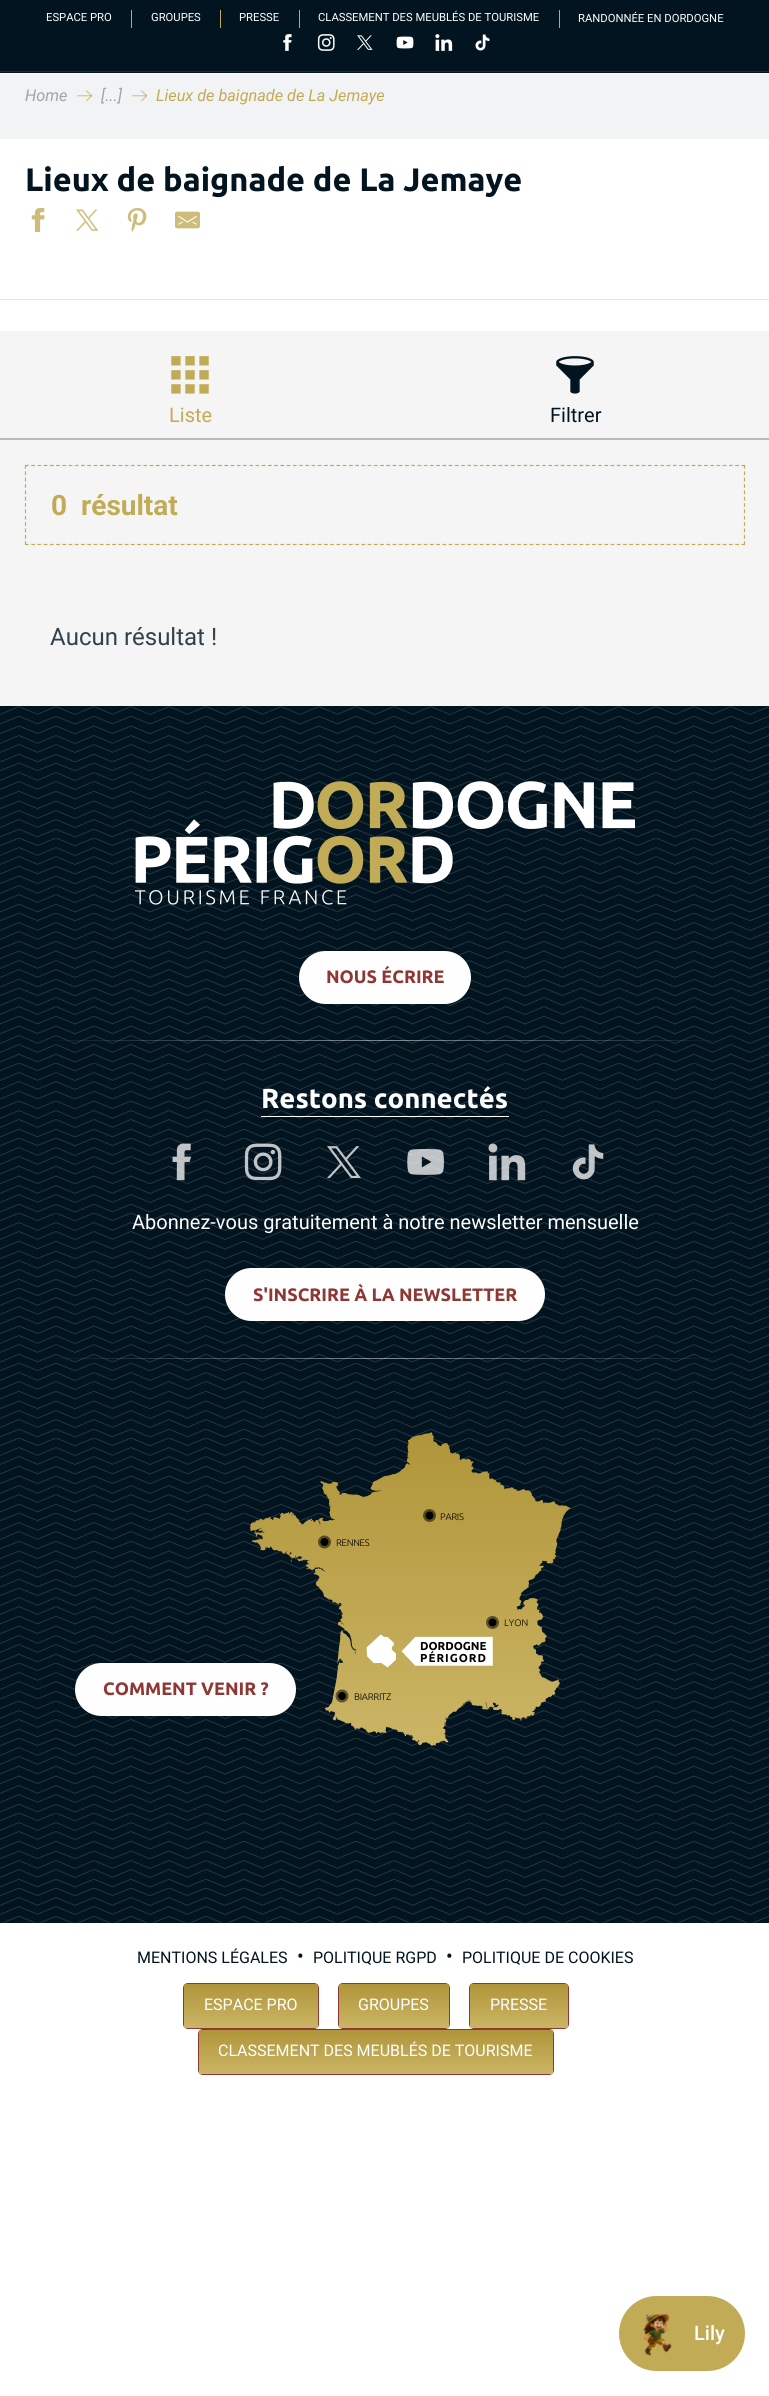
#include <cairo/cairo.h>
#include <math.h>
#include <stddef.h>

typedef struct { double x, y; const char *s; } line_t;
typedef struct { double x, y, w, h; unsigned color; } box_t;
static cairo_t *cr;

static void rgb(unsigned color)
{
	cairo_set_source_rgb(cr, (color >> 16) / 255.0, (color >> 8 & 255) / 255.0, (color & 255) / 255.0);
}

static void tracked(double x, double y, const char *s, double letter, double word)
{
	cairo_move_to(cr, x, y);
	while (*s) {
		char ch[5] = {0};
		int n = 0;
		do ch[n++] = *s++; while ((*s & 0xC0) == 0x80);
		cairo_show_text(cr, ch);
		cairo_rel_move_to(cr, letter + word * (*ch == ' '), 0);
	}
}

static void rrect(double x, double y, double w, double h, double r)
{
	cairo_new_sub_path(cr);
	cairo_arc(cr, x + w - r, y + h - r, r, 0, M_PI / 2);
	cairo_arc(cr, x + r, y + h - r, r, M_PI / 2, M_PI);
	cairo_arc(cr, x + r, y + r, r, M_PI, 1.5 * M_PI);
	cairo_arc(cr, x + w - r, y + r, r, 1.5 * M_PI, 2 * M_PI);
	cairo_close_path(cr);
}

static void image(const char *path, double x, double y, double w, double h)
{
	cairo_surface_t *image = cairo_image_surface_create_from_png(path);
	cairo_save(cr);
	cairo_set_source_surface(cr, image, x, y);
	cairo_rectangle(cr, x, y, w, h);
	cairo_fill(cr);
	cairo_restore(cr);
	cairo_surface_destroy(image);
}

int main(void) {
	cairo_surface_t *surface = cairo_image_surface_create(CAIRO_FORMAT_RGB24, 769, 2396);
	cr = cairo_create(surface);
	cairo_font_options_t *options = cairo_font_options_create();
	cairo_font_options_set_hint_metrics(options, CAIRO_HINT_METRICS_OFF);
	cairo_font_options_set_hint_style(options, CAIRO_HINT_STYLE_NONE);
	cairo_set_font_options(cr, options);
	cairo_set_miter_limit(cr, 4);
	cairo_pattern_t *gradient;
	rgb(0xffffff);
	cairo_paint(cr);
	{
		static const box_t items[] = {
			{0, 0, 769, 73, 0x02141f},
			{0, 71, 769, 1, 0x1b2b35},
			{131, 10, 1, 18, 0xc2ab57},
			{220, 10, 1, 18, 0xc2ab57},
			{299, 10, 1, 18, 0xc2ab57},
			{559, 10, 1, 18, 0xc2ab57},
		};
		for (size_t i = 0; i < sizeof items / sizeof *items; i++) {
			rgb(items[i].color);
			cairo_rectangle(cr, items[i].x, items[i].y, items[i].w, items[i].h);
			cairo_fill(cr);
		}
	}
	image("img/1.png", 283, 34, 9, 17);
	image("img/2.png", 317, 34, 18, 17);
	image("img/3.png", 357, 35, 16, 15);
	image("img/4.png", 396, 36, 18, 13);
	image("img/5.png", 435, 34, 18, 17);
	image("img/6.png", 475, 34, 15, 17);
	rgb(0xe5e5e5);
	cairo_rectangle(cr, 0, 299, 769, 1);
	cairo_fill(cr);
	rgb(0xf2f3f4);
	cairo_rectangle(cr, 0, 74, 769, 65);
	cairo_fill(cr);
	image("img/7.png", 77, 90, 16, 11);
	image("img/7.png", 132, 90, 16, 11);
	image("img/8.png", 31, 208, 14, 24);
	image("img/9.png", 76, 209, 23, 22);
	image("img/10.png", 127, 208, 20, 24);
	image("img/11.png", 175, 211, 25, 18);
	rgb(0xf5f5f5);
	cairo_rectangle(cr, 0, 331, 769, 107);
	cairo_fill(cr);
	rgb(0xbababa);
	cairo_rectangle(cr, 0, 438, 769, 2);
	cairo_fill(cr);
	image("img/12.png", 171, 356, 38, 38);
	image("img/13.png", 556, 356, 38, 38);
	rgb(0xf5f5f5);
	cairo_rectangle(cr, 0, 440, 769, 266);
	cairo_fill(cr);
	cairo_new_path(cr);
	cairo_move_to(cr, 25, 465.5);
	cairo_line_to(cr, 745, 465.5);
	rgb(0xc2ab57);
	cairo_set_line_width(cr, 1.2);
	cairo_set_dash(cr, (double[]){3.75, 2.48}, 2, 0);
	cairo_stroke(cr);
	cairo_new_path(cr);
	cairo_move_to(cr, 744.5, 465);
	cairo_line_to(cr, 744.5, 545);
	cairo_set_dash(cr, (double[]){3.75, 2.6}, 2, 0);
	cairo_stroke(cr);
	cairo_new_path(cr);
	cairo_move_to(cr, 25, 544.5);
	cairo_line_to(cr, 745, 544.5);
	cairo_set_dash(cr, (double[]){3.75, 2.48}, 2, 0);
	cairo_stroke(cr);
	cairo_new_path(cr);
	cairo_move_to(cr, 25.5, 465);
	cairo_line_to(cr, 25.5, 545);
	cairo_set_dash(cr, (double[]){3.75, 2.6}, 2, 0);
	cairo_stroke(cr);
	rgb(0x02141f);
	cairo_rectangle(cr, 0, 706, 769, 1217);
	cairo_fill(cr);
	image("img/14.png", 0, 706, 769, 1217);
	image("img/15.png", 135, 781, 500, 124);
	rgb(0xfefefe);
	rrect(300.5, 952.5, 169, 50, 25);
	cairo_fill_preserve(cr);
	cairo_set_line_width(cr, 3);
	cairo_set_dash(cr, NULL, 0, 0);
	cairo_stroke(cr);
	gradient = cairo_pattern_create_linear(38, 1041, 733, 1041);
	cairo_pattern_add_color_stop_rgba(gradient, 0, 0.996, 0.996, 0.996, 0);
	cairo_pattern_add_color_stop_rgba(gradient, 0.5, 0.996, 0.996, 0.996, 0.5);
	cairo_pattern_add_color_stop_rgba(gradient, 1, 0.996, 0.996, 0.996, 0);
	cairo_set_source(cr, gradient);
	cairo_pattern_destroy(gradient);
	cairo_rectangle(cr, 53, 1040, 665, 1);
	cairo_fill(cr);
	rgb(0xfefefe);
	cairo_rectangle(cr, 261, 1116, 248, 1);
	cairo_fill(cr);
	image("img/16.png", 172, 1143, 20, 38);
	image("img/17.png", 244, 1143, 38, 38);
	image("img/18.png", 327, 1146, 34, 33);
	image("img/19.png", 407, 1149, 37, 26);
	image("img/20.png", 488, 1143, 38, 38);
	image("img/21.png", 572, 1144, 32, 36);
	rrect(226.5, 1269.5, 317, 50, 25);
	cairo_fill_preserve(cr);
	cairo_stroke(cr);
	gradient = cairo_pattern_create_linear(38, 1358, 733, 1358);
	cairo_pattern_add_color_stop_rgba(gradient, 0, 0.996, 0.996, 0.996, 0);
	cairo_pattern_add_color_stop_rgba(gradient, 0.5, 0.996, 0.996, 0.996, 0.5);
	cairo_pattern_add_color_stop_rgba(gradient, 1, 0.996, 0.996, 0.996, 0);
	cairo_set_source(cr, gradient);
	cairo_pattern_destroy(gradient);
	cairo_rectangle(cr, 53, 1358, 665, 1);
	cairo_fill(cr);
	image("img/22.png", 250, 1432, 321, 314);
	rgb(0xfefefe);
	rrect(76.5, 1664.5, 218, 50, 25);
	cairo_fill_preserve(cr);
	cairo_stroke(cr);
	rgb(0x8f3734);
	rrect(183, 1983, 136, 46, 5);
	cairo_fill(cr);
	gradient = cairo_pattern_create_linear(251, 1984, 251, 2028);
	cairo_pattern_add_color_stop_rgba(gradient, 0, 0.69, 0.584, 0.224, 1);
	cairo_pattern_add_color_stop_rgba(gradient, 1, 0.796, 0.71, 0.396, 1);
	cairo_set_source(cr, gradient);
	cairo_pattern_destroy(gradient);
	cairo_rectangle(cr, 184, 1984, 134, 44);
	cairo_fill(cr);
	rgb(0x8f3734);
	rrect(338, 1983, 112, 46, 5);
	cairo_fill(cr);
	gradient = cairo_pattern_create_linear(394, 1984, 394, 2028);
	cairo_pattern_add_color_stop_rgba(gradient, 0, 0.69, 0.584, 0.224, 1);
	cairo_pattern_add_color_stop_rgba(gradient, 1, 0.796, 0.71, 0.396, 1);
	cairo_set_source(cr, gradient);
	cairo_pattern_destroy(gradient);
	cairo_rectangle(cr, 339, 1984, 110, 44);
	cairo_fill(cr);
	rgb(0x8f3734);
	rrect(469, 1983, 100, 46, 5);
	cairo_fill(cr);
	gradient = cairo_pattern_create_linear(519, 1984, 519, 2028);
	cairo_pattern_add_color_stop_rgba(gradient, 0, 0.69, 0.584, 0.224, 1);
	cairo_pattern_add_color_stop_rgba(gradient, 1, 0.796, 0.71, 0.396, 1);
	cairo_set_source(cr, gradient);
	cairo_pattern_destroy(gradient);
	cairo_rectangle(cr, 470, 1984, 98, 44);
	cairo_fill(cr);
	rgb(0x8f3734);
	rrect(198, 2029, 356, 46, 5);
	cairo_fill(cr);
	gradient = cairo_pattern_create_linear(376, 2030, 376, 2074);
	cairo_pattern_add_color_stop_rgba(gradient, 0, 0.69, 0.584, 0.224, 1);
	cairo_pattern_add_color_stop_rgba(gradient, 1, 0.796, 0.71, 0.396, 1);
	cairo_set_source(cr, gradient);
	cairo_pattern_destroy(gradient);
	cairo_rectangle(cr, 199, 2030, 354, 44);
	cairo_fill(cr);
	rgb(0xc2ab57);
	rrect(619, 2296, 126, 75, 37.5);
	cairo_fill(cr);
	image("img/23.png", 643, 2312, 29, 44);
	cairo_select_font_face(cr, "Roboto", CAIRO_FONT_SLANT_NORMAL, CAIRO_FONT_WEIGHT_NORMAL);
	cairo_set_font_size(cr, 11.25);
	rgb(0xfefefe);
	{
		static const line_t items[] = {
			{46, 21, "ESPACE PRO"},
			{151, 21, "GROUPES"},
			{239, 21, "PRESSE"},
			{318, 21, "CLASSEMENT DES MEUBLÉS DE TOURISME"},
			{578, 22, "RANDONNÉE EN DORDOGNE"},
		};
		for (size_t i = 0; i < sizeof items / sizeof *items; i++) {
			cairo_move_to(cr, items[i].x, items[i].y);
			cairo_show_text(cr, items[i].s);
		}
	}
	cairo_select_font_face(cr, "Roboto", CAIRO_FONT_SLANT_ITALIC, CAIRO_FONT_WEIGHT_NORMAL);
	cairo_set_font_size(cr, 16.25);
	rgb(0xa3a3a3);
	cairo_move_to(cr, 25, 101);
	cairo_show_text(cr, "Home");
	cairo_move_to(cr, 101, 101);
	cairo_show_text(cr, "[...]");
	rgb(0xc2ab57);
	cairo_move_to(cr, 156, 101);
	cairo_show_text(cr, "Lieux de baignade de La Jemaye");
	cairo_select_font_face(cr, "Ubuntu", CAIRO_FONT_SLANT_NORMAL, CAIRO_FONT_WEIGHT_BOLD);
	cairo_set_font_size(cr, 32.5);
	rgb(0x02141f);
	cairo_move_to(cr, 25, 191);
	cairo_show_text(cr, "Lieux de baignade de La Jemaye");
	cairo_select_font_face(cr, "Roboto", CAIRO_FONT_SLANT_NORMAL, CAIRO_FONT_WEIGHT_NORMAL);
	cairo_set_font_size(cr, 20);
	rgb(0xc2ab57);
	cairo_move_to(cr, 169, 422);
	cairo_show_text(cr, "Liste");
	rgb(0x02141f);
	cairo_move_to(cr, 550, 422);
	cairo_show_text(cr, "Filtrer");
	cairo_select_font_face(cr, "Roboto", CAIRO_FONT_SLANT_NORMAL, CAIRO_FONT_WEIGHT_BOLD);
	cairo_set_font_size(cr, 28);
	rgb(0xc2ab57);
	cairo_move_to(cr, 51, 515);
	cairo_show_text(cr, "0");
	cairo_move_to(cr, 81, 515);
	cairo_show_text(cr, "résultat");
	cairo_select_font_face(cr, "Roboto", CAIRO_FONT_SLANT_NORMAL, CAIRO_FONT_WEIGHT_NORMAL);
	cairo_set_font_size(cr, 24);
	rgb(0x33414a);
	cairo_move_to(cr, 50, 645);
	cairo_show_text(cr, "Aucun résultat !");
	cairo_select_font_face(cr, "Ubuntu", CAIRO_FONT_SLANT_NORMAL, CAIRO_FONT_WEIGHT_BOLD);
	cairo_set_font_size(cr, 18);
	rgb(0x8f3734);
	cairo_move_to(cr, 326, 983);
	cairo_show_text(cr, "NOUS ÉCRIRE");
	cairo_set_font_size(cr, 27.5);
	rgb(0xfefefe);
	cairo_move_to(cr, 261, 1108);
	cairo_show_text(cr, "Restons connectés");
	cairo_select_font_face(cr, "Roboto", CAIRO_FONT_SLANT_NORMAL, CAIRO_FONT_WEIGHT_NORMAL);
	cairo_set_font_size(cr, 20);
	cairo_move_to(cr, 132, 1229);
	cairo_show_text(cr, "Abonnez-vous gratuitement à notre newsletter mensuelle");
	cairo_select_font_face(cr, "Ubuntu", CAIRO_FONT_SLANT_NORMAL, CAIRO_FONT_WEIGHT_BOLD);
	cairo_set_font_size(cr, 18);
	rgb(0x8f3734);
	cairo_move_to(cr, 253, 1301);
	cairo_show_text(cr, "S'INSCRIRE À LA NEWSLETTER");
	cairo_move_to(cr, 103, 1695);
	cairo_show_text(cr, "COMMENT VENIR ?");
	cairo_select_font_face(cr, "Ubuntu Light", CAIRO_FONT_SLANT_NORMAL, CAIRO_FONT_WEIGHT_NORMAL);
	cairo_set_font_size(cr, 9.5);
	rgb(0x000000);
	tracked(440, 1520, "PARIS", -0.25, 0);
	tracked(336, 1546, "RENNES", -0.25, 0);
	cairo_move_to(cr, 504, 1626);
	cairo_show_text(cr, "LYON");
	cairo_select_font_face(cr, "Ubuntu", CAIRO_FONT_SLANT_NORMAL, CAIRO_FONT_WEIGHT_BOLD);
	cairo_set_font_size(cr, 11.5);
	cairo_move_to(cr, 420, 1650);
	cairo_show_text(cr, "DORDOGNE");
	tracked(420, 1662, "PÉRIGORD", 1, 0);
	cairo_select_font_face(cr, "Ubuntu Light", CAIRO_FONT_SLANT_NORMAL, CAIRO_FONT_WEIGHT_NORMAL);
	cairo_set_font_size(cr, 9.5);
	tracked(354, 1700, "BIARRITZ", -0.25, 0);
	cairo_select_font_face(cr, "Roboto", CAIRO_FONT_SLANT_NORMAL, CAIRO_FONT_WEIGHT_NORMAL);
	cairo_set_font_size(cr, 16);
	rgb(0x02141f);
	cairo_move_to(cr, 137, 1963);
	cairo_show_text(cr, "MENTIONS LÉGALES");
	cairo_set_font_size(cr, 20);
	cairo_move_to(cr, 297, 1963);
	cairo_show_text(cr, "•");
	cairo_set_font_size(cr, 16);
	cairo_move_to(cr, 313, 1963);
	cairo_show_text(cr, "POLITIQUE RGPD");
	cairo_set_font_size(cr, 20);
	cairo_move_to(cr, 446, 1963);
	cairo_show_text(cr, "•");
	cairo_set_font_size(cr, 16);
	cairo_move_to(cr, 462, 1963);
	cairo_show_text(cr, "POLITIQUE DE COOKIES");
	rgb(0xfefefe);
	{
		static const line_t items[] = {
			{204, 2010, "ESPACE PRO"},
			{358, 2010, "GROUPES"},
			{490, 2010, "PRESSE"},
			{218, 2056, "CLASSEMENT DES MEUBLÉS DE TOURISME"},
		};
		for (size_t i = 0; i < sizeof items / sizeof *items; i++) {
			cairo_move_to(cr, items[i].x, items[i].y);
			cairo_show_text(cr, items[i].s);
		}
	}
	cairo_select_font_face(cr, "Roboto Medium", CAIRO_FONT_SLANT_NORMAL, CAIRO_FONT_WEIGHT_NORMAL);
	cairo_set_font_size(cr, 20);
	cairo_move_to(cr, 694, 2340);
	cairo_show_text(cr, "Lily");
	cairo_surface_write_to_png(surface, "page.png");
	cairo_font_options_destroy(options);
	cairo_destroy(cr);
	cairo_surface_destroy(surface);
	return 0;
}
